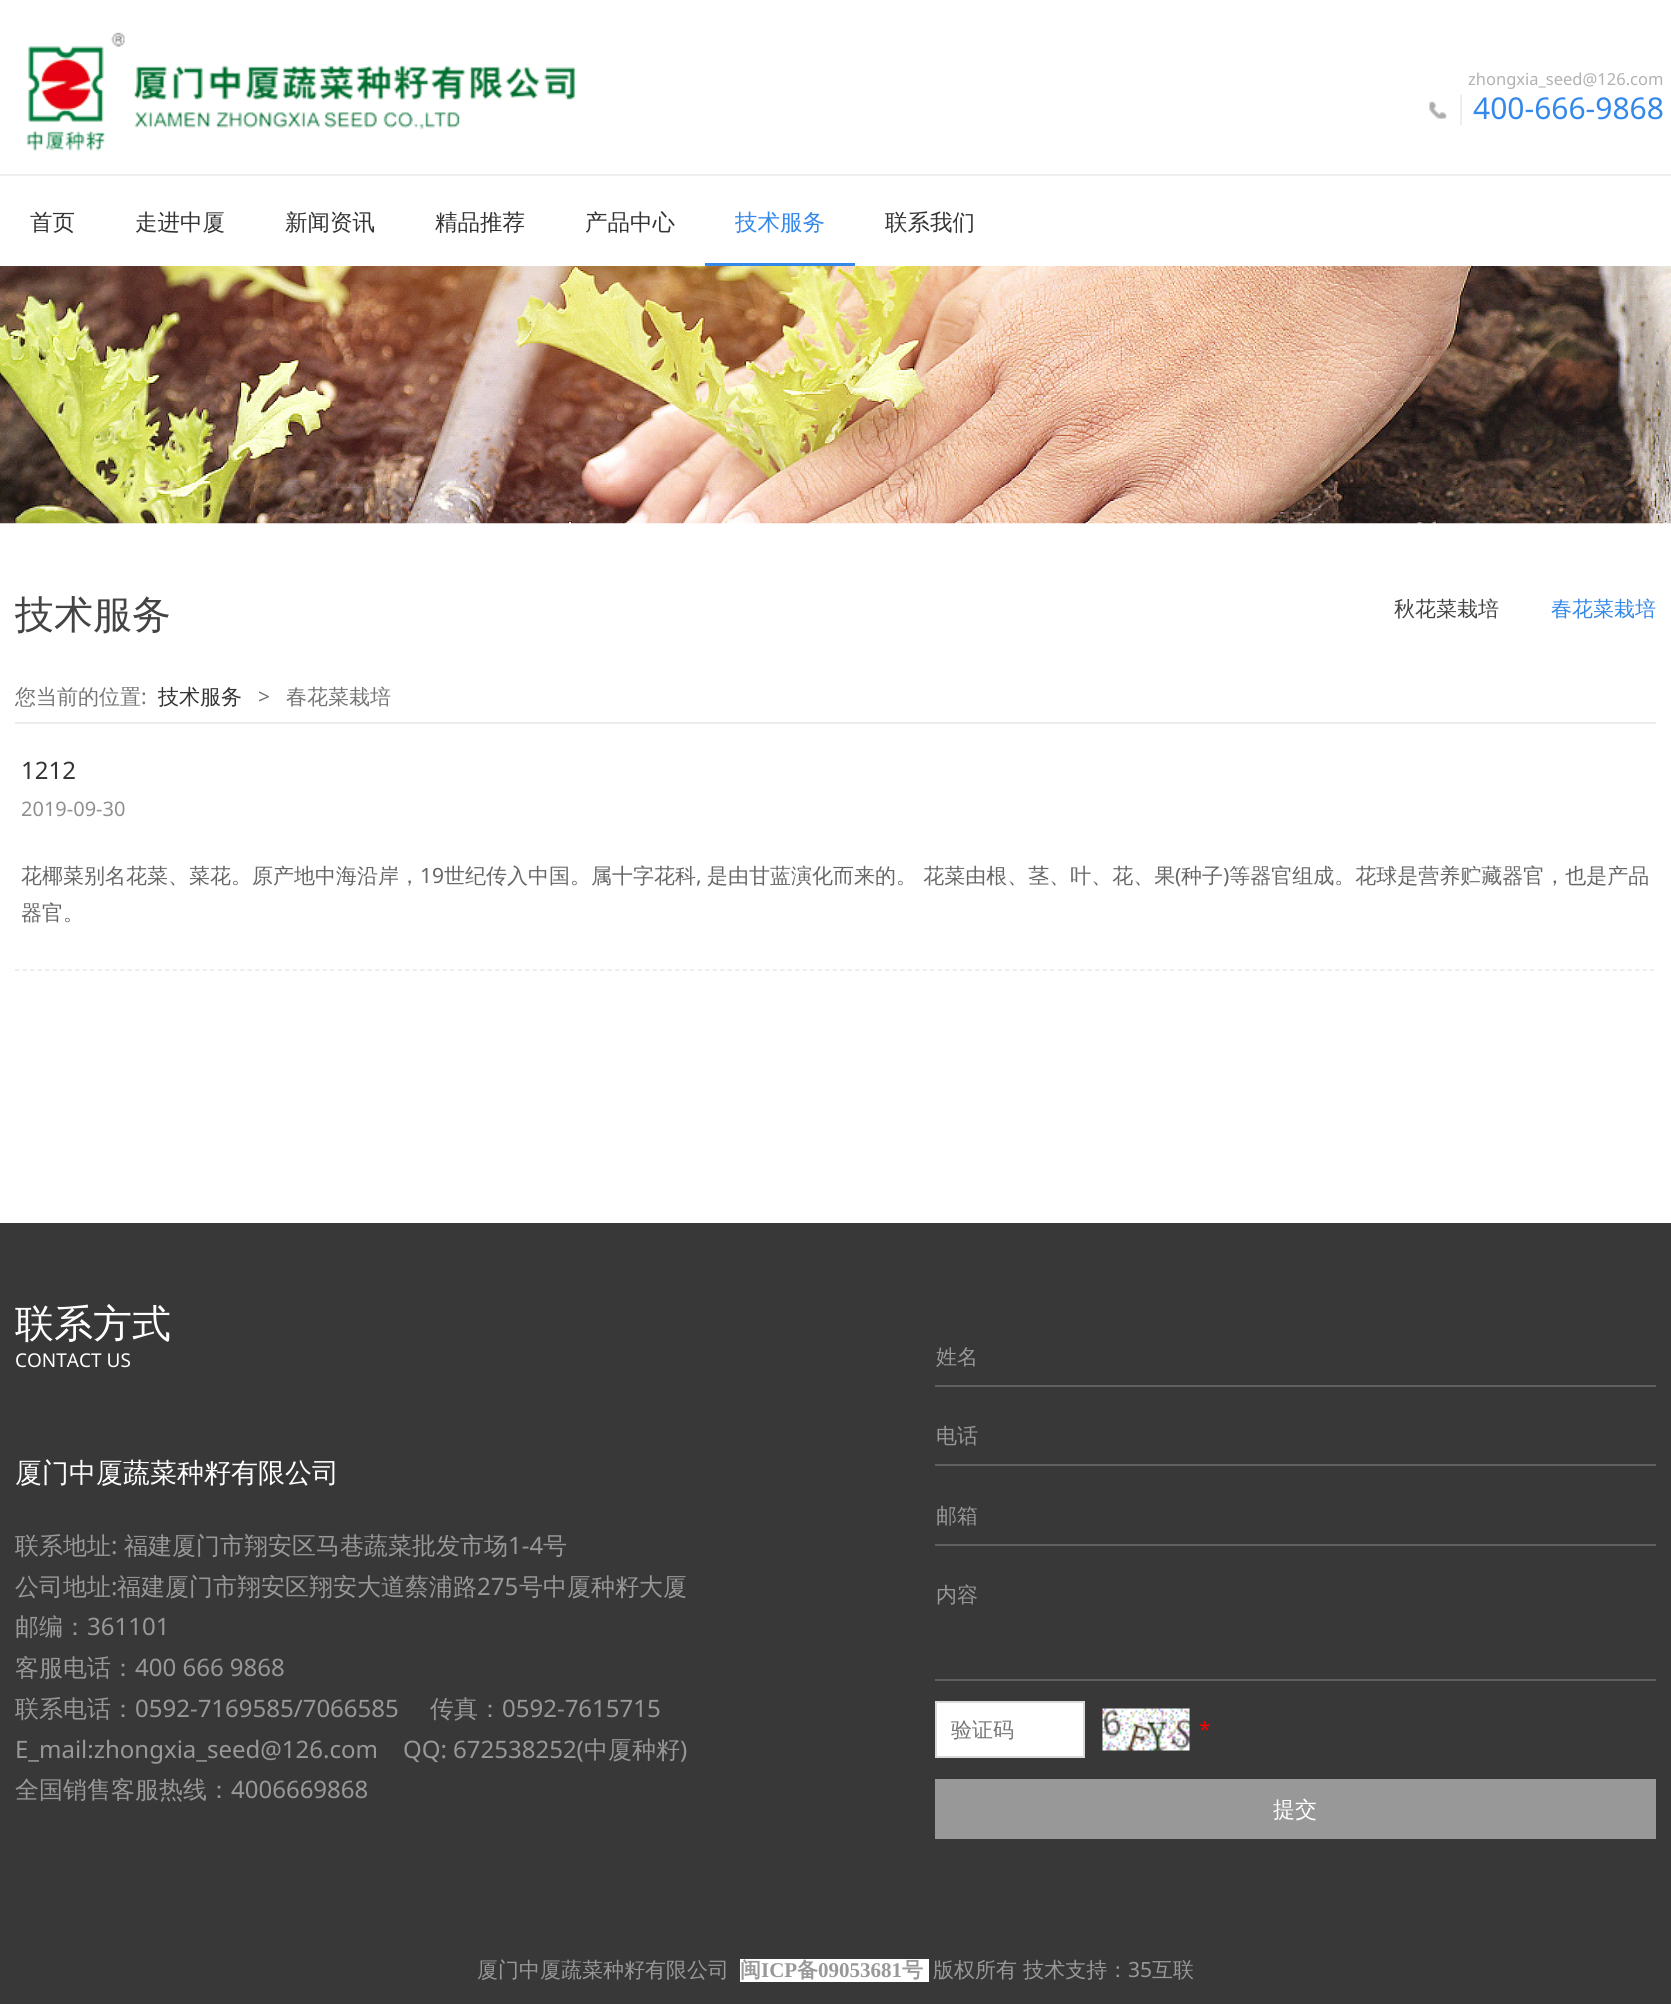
#include <cairo/cairo.h>
#include <math.h>
#include <stddef.h>

typedef struct { double x, y; const char *s; } line_t;
typedef struct { double x, y, w, h; unsigned color; } box_t;
static cairo_t *cr;

static void rgb(unsigned color)
{
	cairo_set_source_rgb(cr, (color >> 16) / 255.0, (color >> 8 & 255) / 255.0, (color & 255) / 255.0);
}

static void image(const char *path, double x, double y, double w, double h)
{
	cairo_surface_t *image = cairo_image_surface_create_from_png(path);
	cairo_save(cr);
	cairo_set_source_surface(cr, image, x, y);
	cairo_rectangle(cr, x, y, w, h);
	cairo_fill(cr);
	cairo_restore(cr);
	cairo_surface_destroy(image);
}

int main(void) {
	cairo_surface_t *surface = cairo_image_surface_create(CAIRO_FORMAT_RGB24, 1671, 2012);
	cr = cairo_create(surface);
	cairo_font_options_t *options = cairo_font_options_create();
	cairo_font_options_set_hint_metrics(options, CAIRO_HINT_METRICS_OFF);
	cairo_font_options_set_hint_style(options, CAIRO_HINT_STYLE_NONE);
	cairo_set_font_options(cr, options);
	cairo_set_miter_limit(cr, 4);
	rgb(0xffffff);
	cairo_paint(cr);
	image("img/1.png", 26, 32, 550, 119);
	image("img/2.png", 1429, 101, 18, 18);
	{
		static const box_t items[] = {
			{1460, 95, 2, 30, 0xeeeeee},
			{0, 174, 1671, 2, 0xeeeeee},
			{705, 263, 150, 3, 0x3488ea},
		};
		for (size_t i = 0; i < sizeof items / sizeof *items; i++) {
			rgb(items[i].color);
			cairo_rectangle(cr, items[i].x, items[i].y, items[i].w, items[i].h);
			cairo_fill(cr);
		}
	}
	image("img/3.png", 0, 266, 1671, 258);
	rgb(0xececec);
	cairo_rectangle(cr, 15, 722, 1641, 2);
	cairo_fill(cr);
	cairo_new_path(cr);
	cairo_move_to(cr, 15, 970);
	cairo_line_to(cr, 1656, 970);
	rgb(0xe9e9e9);
	cairo_set_line_width(cr, 1.5);
	cairo_set_dash(cr, (double[]){4.5, 3}, 2, 0);
	cairo_stroke(cr);
	{
		static const box_t items[] = {
			{0, 1223, 1671, 781, 0x383838},
			{935, 1385, 721, 2, 0x606060},
			{935, 1464, 721, 2, 0x606060},
			{935, 1544, 721, 2, 0x606060},
			{935, 1679, 721, 2, 0x606060},
		};
		for (size_t i = 0; i < sizeof items / sizeof *items; i++) {
			rgb(items[i].color);
			cairo_rectangle(cr, items[i].x, items[i].y, items[i].w, items[i].h);
			cairo_fill(cr);
		}
	}
	rgb(0xffffff);
	cairo_rectangle(cr, 936, 1702, 148, 55);
	cairo_fill_preserve(cr);
	rgb(0xdadada);
	cairo_set_line_width(cr, 2);
	cairo_set_dash(cr, NULL, 0, 0);
	cairo_stroke(cr);
	image("img/4.png", 1102, 1708, 88, 43);
	rgb(0x989898);
	cairo_rectangle(cr, 935, 1779, 721, 60);
	cairo_fill(cr);
	rgb(0xffffff);
	cairo_rectangle(cr, 740, 1959, 189, 23);
	cairo_fill(cr);
	cairo_select_font_face(cr, "Noto Sans", CAIRO_FONT_SLANT_NORMAL, CAIRO_FONT_WEIGHT_NORMAL);
	cairo_set_font_size(cr, 16.5);
	rgb(0xb1b1b1);
	cairo_move_to(cr, 1468, 85);
	cairo_show_text(cr, "zhongxia_seed@126.com");
	cairo_set_font_size(cr, 30);
	rgb(0x3488ea);
	cairo_move_to(cr, 1473, 119);
	cairo_show_text(cr, "400-666-9868");
	cairo_select_font_face(cr, "WenQuanYi Zen Hei Medium", CAIRO_FONT_SLANT_NORMAL, CAIRO_FONT_WEIGHT_NORMAL);
	cairo_set_font_size(cr, 22.5);
	rgb(0x333333);
	{
		static const line_t items[] = {
			{30, 230, "首页"},
			{135, 230, "走进中厦"},
			{285, 230, "新闻资讯"},
			{435, 230, "精品推荐"},
			{585, 230, "产品中心"},
		};
		for (size_t i = 0; i < sizeof items / sizeof *items; i++) {
			cairo_move_to(cr, items[i].x, items[i].y);
			cairo_show_text(cr, items[i].s);
		}
	}
	rgb(0x3488ea);
	cairo_move_to(cr, 735, 230);
	cairo_show_text(cr, "技术服务");
	rgb(0x333333);
	cairo_move_to(cr, 885, 230);
	cairo_show_text(cr, "联系我们");
	cairo_set_font_size(cr, 39);
	rgb(0x444444);
	cairo_move_to(cr, 15, 628);
	cairo_show_text(cr, "技术服务");
	cairo_set_font_size(cr, 21);
	cairo_move_to(cr, 1394, 616);
	cairo_show_text(cr, "秋花菜栽培");
	rgb(0x3488ea);
	cairo_move_to(cr, 1551, 616);
	cairo_show_text(cr, "春花菜栽培");
	rgb(0x757575);
	cairo_move_to(cr, 15, 704);
	cairo_show_text(cr, "您当前的位置");
	cairo_select_font_face(cr, "Noto Sans", CAIRO_FONT_SLANT_NORMAL, CAIRO_FONT_WEIGHT_NORMAL);
	cairo_move_to(cr, 141, 704);
	cairo_show_text(cr, ":");
	cairo_select_font_face(cr, "WenQuanYi Zen Hei Medium", CAIRO_FONT_SLANT_NORMAL, CAIRO_FONT_WEIGHT_NORMAL);
	rgb(0x333333);
	cairo_move_to(cr, 158, 704);
	cairo_show_text(cr, "技术服务");
	cairo_select_font_face(cr, "Noto Sans", CAIRO_FONT_SLANT_NORMAL, CAIRO_FONT_WEIGHT_NORMAL);
	rgb(0x757575);
	cairo_move_to(cr, 258, 704);
	cairo_show_text(cr, ">");
	cairo_select_font_face(cr, "WenQuanYi Zen Hei Medium", CAIRO_FONT_SLANT_NORMAL, CAIRO_FONT_WEIGHT_NORMAL);
	cairo_move_to(cr, 286, 704);
	cairo_show_text(cr, "春花菜栽培");
	cairo_select_font_face(cr, "Noto Sans", CAIRO_FONT_SLANT_NORMAL, CAIRO_FONT_WEIGHT_NORMAL);
	cairo_set_font_size(cr, 24);
	rgb(0x333333);
	cairo_move_to(cr, 21, 779);
	cairo_show_text(cr, "1212");
	cairo_set_font_size(cr, 20);
	rgb(0x8f8f8f);
	cairo_move_to(cr, 21, 816);
	cairo_show_text(cr, "2019-09-30");
	cairo_select_font_face(cr, "WenQuanYi Zen Hei Medium", CAIRO_FONT_SLANT_NORMAL, CAIRO_FONT_WEIGHT_NORMAL);
	cairo_set_font_size(cr, 21);
	rgb(0x666666);
	cairo_move_to(cr, 21, 883);
	cairo_show_text(cr, "花椰菜别名花菜、菜花。原产地中海沿岸，");
	cairo_select_font_face(cr, "Noto Sans", CAIRO_FONT_SLANT_NORMAL, CAIRO_FONT_WEIGHT_NORMAL);
	cairo_move_to(cr, 420, 883);
	cairo_show_text(cr, "19");
	cairo_select_font_face(cr, "WenQuanYi Zen Hei Medium", CAIRO_FONT_SLANT_NORMAL, CAIRO_FONT_WEIGHT_NORMAL);
	cairo_move_to(cr, 444, 883);
	cairo_show_text(cr, "世纪传入中国。属十字花科");
	cairo_move_to(cr, 707, 883);
	cairo_show_text(cr, "是由甘蓝演化而来的。 花菜由根、茎、叶、花、果");
	cairo_select_font_face(cr, "Noto Sans", CAIRO_FONT_SLANT_NORMAL, CAIRO_FONT_WEIGHT_NORMAL);
	cairo_move_to(cr, 1175, 883);
	cairo_show_text(cr, "(");
	cairo_select_font_face(cr, "WenQuanYi Zen Hei Medium", CAIRO_FONT_SLANT_NORMAL, CAIRO_FONT_WEIGHT_NORMAL);
	cairo_move_to(cr, 1181, 883);
	cairo_show_text(cr, "种子 等器官组成。花球是营养贮藏器官，也是产品");
	cairo_select_font_face(cr, "Noto Sans", CAIRO_FONT_SLANT_NORMAL, CAIRO_FONT_WEIGHT_NORMAL);
	cairo_move_to(cr, 696, 883);
	cairo_show_text(cr, ",");
	cairo_move_to(cr, 1223, 883);
	cairo_show_text(cr, ")");
	cairo_select_font_face(cr, "WenQuanYi Zen Hei Medium", CAIRO_FONT_SLANT_NORMAL, CAIRO_FONT_WEIGHT_NORMAL);
	cairo_move_to(cr, 21, 920);
	cairo_show_text(cr, "器官。");
	cairo_set_font_size(cr, 39);
	rgb(0xffffff);
	cairo_move_to(cr, 15, 1337);
	cairo_show_text(cr, "联系方式");
	cairo_select_font_face(cr, "Noto Sans", CAIRO_FONT_SLANT_NORMAL, CAIRO_FONT_WEIGHT_NORMAL);
	cairo_set_font_size(cr, 19);
	cairo_move_to(cr, 15, 1367);
	cairo_show_text(cr, "CONTACT US");
	cairo_select_font_face(cr, "WenQuanYi Zen Hei Medium", CAIRO_FONT_SLANT_NORMAL, CAIRO_FONT_WEIGHT_NORMAL);
	cairo_set_font_size(cr, 27);
	cairo_move_to(cr, 15, 1482);
	cairo_show_text(cr, "厦门中厦蔬菜种籽有限公司");
	cairo_set_font_size(cr, 24);
	rgb(0x989898);
	cairo_move_to(cr, 15, 1554);
	cairo_show_text(cr, "联系地址");
	cairo_select_font_face(cr, "Noto Sans", CAIRO_FONT_SLANT_NORMAL, CAIRO_FONT_WEIGHT_NORMAL);
	cairo_move_to(cr, 111, 1554);
	cairo_show_text(cr, ":");
	cairo_select_font_face(cr, "WenQuanYi Zen Hei Medium", CAIRO_FONT_SLANT_NORMAL, CAIRO_FONT_WEIGHT_NORMAL);
	cairo_move_to(cr, 124, 1554);
	cairo_show_text(cr, "福建厦门市翔安区马巷蔬菜批发市场");
	cairo_select_font_face(cr, "Noto Sans", CAIRO_FONT_SLANT_NORMAL, CAIRO_FONT_WEIGHT_NORMAL);
	cairo_move_to(cr, 508, 1554);
	cairo_show_text(cr, "1-4");
	cairo_select_font_face(cr, "WenQuanYi Zen Hei Medium", CAIRO_FONT_SLANT_NORMAL, CAIRO_FONT_WEIGHT_NORMAL);
	cairo_move_to(cr, 543, 1554);
	cairo_show_text(cr, "号");
	cairo_move_to(cr, 15, 1595);
	cairo_show_text(cr, "公司地址");
	cairo_select_font_face(cr, "Noto Sans", CAIRO_FONT_SLANT_NORMAL, CAIRO_FONT_WEIGHT_NORMAL);
	cairo_move_to(cr, 111, 1595);
	cairo_show_text(cr, ":");
	cairo_select_font_face(cr, "WenQuanYi Zen Hei Medium", CAIRO_FONT_SLANT_NORMAL, CAIRO_FONT_WEIGHT_NORMAL);
	cairo_move_to(cr, 117, 1595);
	cairo_show_text(cr, "福建厦门市翔安区翔安大道蔡浦路");
	cairo_select_font_face(cr, "Noto Sans", CAIRO_FONT_SLANT_NORMAL, CAIRO_FONT_WEIGHT_NORMAL);
	cairo_move_to(cr, 477, 1595);
	cairo_show_text(cr, "275");
	cairo_select_font_face(cr, "WenQuanYi Zen Hei Medium", CAIRO_FONT_SLANT_NORMAL, CAIRO_FONT_WEIGHT_NORMAL);
	cairo_move_to(cr, 519, 1595);
	cairo_show_text(cr, "号中厦种籽大厦");
	cairo_move_to(cr, 15, 1635);
	cairo_show_text(cr, "邮编：");
	cairo_select_font_face(cr, "Noto Sans", CAIRO_FONT_SLANT_NORMAL, CAIRO_FONT_WEIGHT_NORMAL);
	cairo_move_to(cr, 87, 1635);
	cairo_show_text(cr, "361101");
	cairo_select_font_face(cr, "WenQuanYi Zen Hei Medium", CAIRO_FONT_SLANT_NORMAL, CAIRO_FONT_WEIGHT_NORMAL);
	cairo_move_to(cr, 15, 1676);
	cairo_show_text(cr, "客服电话：");
	cairo_select_font_face(cr, "Noto Sans", CAIRO_FONT_SLANT_NORMAL, CAIRO_FONT_WEIGHT_NORMAL);
	cairo_move_to(cr, 135, 1676);
	cairo_show_text(cr, "400 666 9868");
	cairo_select_font_face(cr, "WenQuanYi Zen Hei Medium", CAIRO_FONT_SLANT_NORMAL, CAIRO_FONT_WEIGHT_NORMAL);
	cairo_move_to(cr, 15, 1717);
	cairo_show_text(cr, "联系电话：");
	cairo_select_font_face(cr, "Noto Sans", CAIRO_FONT_SLANT_NORMAL, CAIRO_FONT_WEIGHT_NORMAL);
	cairo_move_to(cr, 135, 1717);
	cairo_show_text(cr, "0592-7169585/7066585");
	cairo_select_font_face(cr, "WenQuanYi Zen Hei Medium", CAIRO_FONT_SLANT_NORMAL, CAIRO_FONT_WEIGHT_NORMAL);
	cairo_move_to(cr, 430, 1717);
	cairo_show_text(cr, "传真：");
	cairo_select_font_face(cr, "Noto Sans", CAIRO_FONT_SLANT_NORMAL, CAIRO_FONT_WEIGHT_NORMAL);
	cairo_move_to(cr, 502, 1717);
	cairo_show_text(cr, "0592-7615715");
	cairo_move_to(cr, 15, 1758);
	cairo_show_text(cr, "E_mail:zhongxia_seed@126.com    QQ: 672538252(");
	cairo_select_font_face(cr, "WenQuanYi Zen Hei Medium", CAIRO_FONT_SLANT_NORMAL, CAIRO_FONT_WEIGHT_NORMAL);
	cairo_move_to(cr, 584, 1758);
	cairo_show_text(cr, "中厦种籽");
	cairo_select_font_face(cr, "Noto Sans", CAIRO_FONT_SLANT_NORMAL, CAIRO_FONT_WEIGHT_NORMAL);
	cairo_move_to(cr, 680, 1758);
	cairo_show_text(cr, ")");
	cairo_select_font_face(cr, "WenQuanYi Zen Hei Medium", CAIRO_FONT_SLANT_NORMAL, CAIRO_FONT_WEIGHT_NORMAL);
	cairo_move_to(cr, 15, 1798);
	cairo_show_text(cr, "全国销售客服热线：");
	cairo_select_font_face(cr, "Noto Sans", CAIRO_FONT_SLANT_NORMAL, CAIRO_FONT_WEIGHT_NORMAL);
	cairo_move_to(cr, 231, 1798);
	cairo_show_text(cr, "4006669868");
	cairo_select_font_face(cr, "WenQuanYi Zen Hei Medium", CAIRO_FONT_SLANT_NORMAL, CAIRO_FONT_WEIGHT_NORMAL);
	cairo_set_font_size(cr, 21);
	{
		static const line_t items[] = {
			{936, 1364, "姓名"},
			{936, 1443, "电话"},
			{936, 1523, "邮箱"},
			{936, 1602, "内容"},
		};
		for (size_t i = 0; i < sizeof items / sizeof *items; i++) {
			cairo_move_to(cr, items[i].x, items[i].y);
			cairo_show_text(cr, items[i].s);
		}
	}
	rgb(0x757575);
	cairo_move_to(cr, 951, 1737);
	cairo_show_text(cr, "验证码");
	cairo_select_font_face(cr, "Noto Sans", CAIRO_FONT_SLANT_NORMAL, CAIRO_FONT_WEIGHT_NORMAL);
	rgb(0xff0000);
	cairo_move_to(cr, 1199, 1737);
	cairo_show_text(cr, "*");
	cairo_select_font_face(cr, "WenQuanYi Zen Hei Medium", CAIRO_FONT_SLANT_NORMAL, CAIRO_FONT_WEIGHT_NORMAL);
	cairo_set_font_size(cr, 22);
	rgb(0xffffff);
	cairo_move_to(cr, 1273, 1817);
	cairo_show_text(cr, "提交");
	cairo_set_font_size(cr, 21);
	rgb(0x989898);
	cairo_move_to(cr, 477, 1977);
	cairo_show_text(cr, "厦门中厦蔬菜种籽有限公司");
	cairo_select_font_face(cr, "WenQuanYi Zen Hei", CAIRO_FONT_SLANT_NORMAL, CAIRO_FONT_WEIGHT_BOLD);
	cairo_move_to(cr, 740, 1977);
	cairo_show_text(cr, "闽");
	cairo_select_font_face(cr, "Liberation Serif", CAIRO_FONT_SLANT_NORMAL, CAIRO_FONT_WEIGHT_BOLD);
	cairo_move_to(cr, 761, 1977);
	cairo_show_text(cr, "ICP");
	cairo_select_font_face(cr, "WenQuanYi Zen Hei", CAIRO_FONT_SLANT_NORMAL, CAIRO_FONT_WEIGHT_BOLD);
	cairo_move_to(cr, 797, 1977);
	cairo_show_text(cr, "备");
	cairo_select_font_face(cr, "Liberation Serif", CAIRO_FONT_SLANT_NORMAL, CAIRO_FONT_WEIGHT_BOLD);
	cairo_move_to(cr, 818, 1977);
	cairo_show_text(cr, "09053681");
	cairo_select_font_face(cr, "WenQuanYi Zen Hei", CAIRO_FONT_SLANT_NORMAL, CAIRO_FONT_WEIGHT_BOLD);
	cairo_move_to(cr, 902, 1977);
	cairo_show_text(cr, "号");
	cairo_select_font_face(cr, "WenQuanYi Zen Hei Medium", CAIRO_FONT_SLANT_NORMAL, CAIRO_FONT_WEIGHT_NORMAL);
	cairo_move_to(cr, 933, 1977);
	cairo_show_text(cr, "版权所有 技术支持：");
	cairo_select_font_face(cr, "Noto Sans", CAIRO_FONT_SLANT_NORMAL, CAIRO_FONT_WEIGHT_NORMAL);
	cairo_move_to(cr, 1128, 1977);
	cairo_show_text(cr, "35");
	cairo_select_font_face(cr, "WenQuanYi Zen Hei Medium", CAIRO_FONT_SLANT_NORMAL, CAIRO_FONT_WEIGHT_NORMAL);
	cairo_move_to(cr, 1152, 1977);
	cairo_show_text(cr, "互联");
	cairo_surface_write_to_png(surface, "page.png");
	cairo_font_options_destroy(options);
	cairo_destroy(cr);
	cairo_surface_destroy(surface);
	return 0;
}
